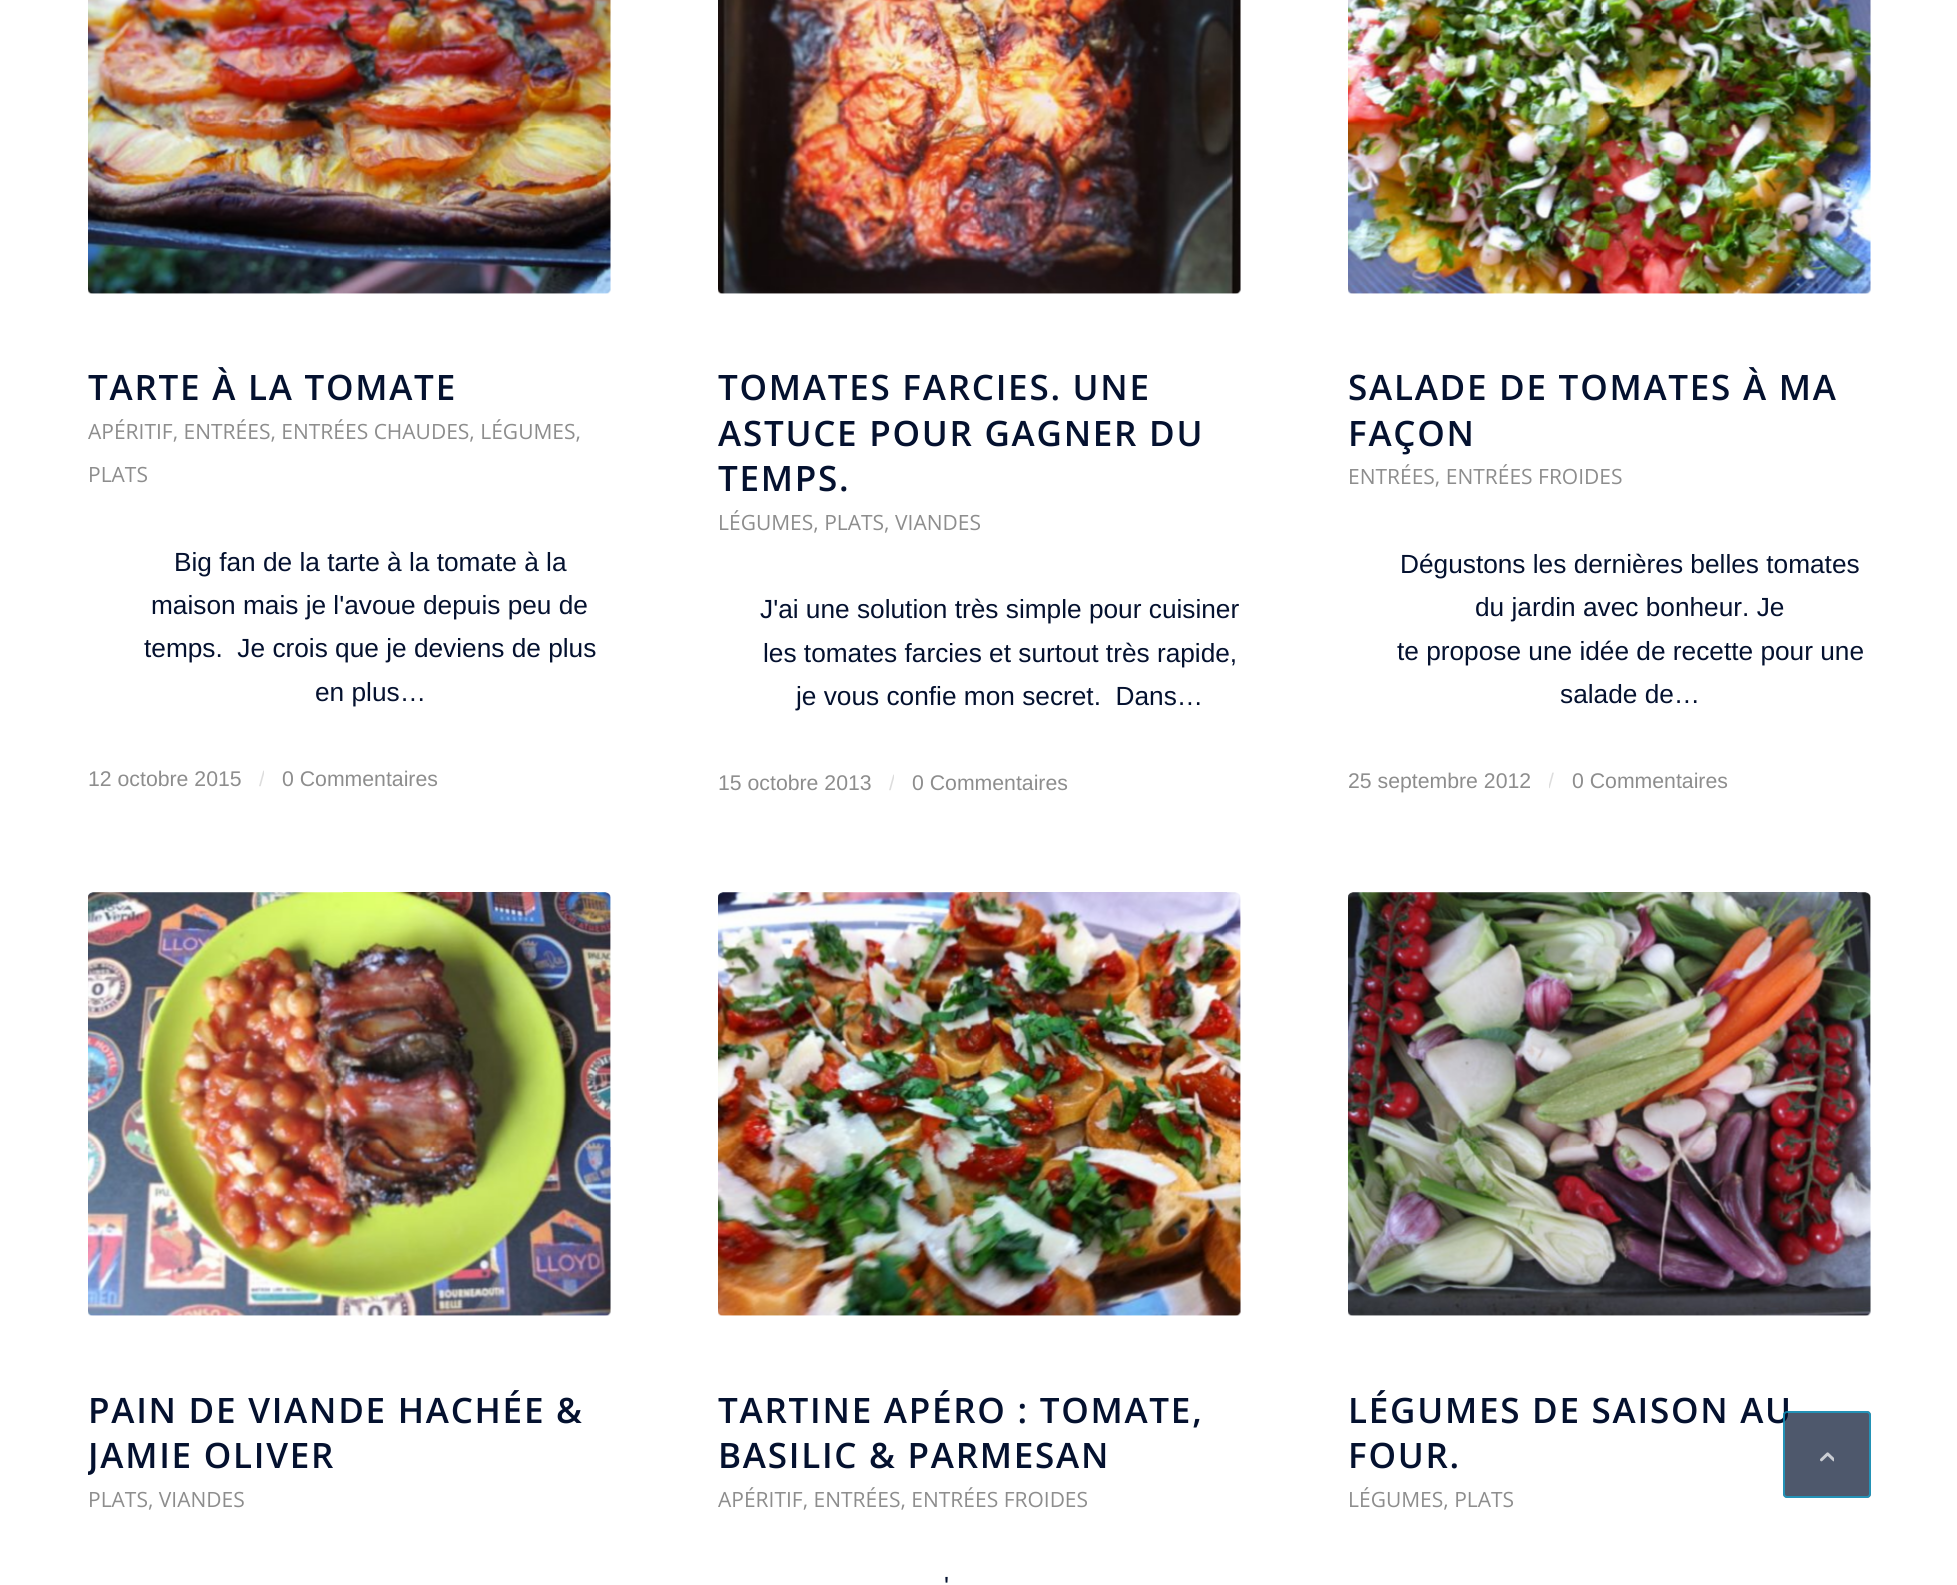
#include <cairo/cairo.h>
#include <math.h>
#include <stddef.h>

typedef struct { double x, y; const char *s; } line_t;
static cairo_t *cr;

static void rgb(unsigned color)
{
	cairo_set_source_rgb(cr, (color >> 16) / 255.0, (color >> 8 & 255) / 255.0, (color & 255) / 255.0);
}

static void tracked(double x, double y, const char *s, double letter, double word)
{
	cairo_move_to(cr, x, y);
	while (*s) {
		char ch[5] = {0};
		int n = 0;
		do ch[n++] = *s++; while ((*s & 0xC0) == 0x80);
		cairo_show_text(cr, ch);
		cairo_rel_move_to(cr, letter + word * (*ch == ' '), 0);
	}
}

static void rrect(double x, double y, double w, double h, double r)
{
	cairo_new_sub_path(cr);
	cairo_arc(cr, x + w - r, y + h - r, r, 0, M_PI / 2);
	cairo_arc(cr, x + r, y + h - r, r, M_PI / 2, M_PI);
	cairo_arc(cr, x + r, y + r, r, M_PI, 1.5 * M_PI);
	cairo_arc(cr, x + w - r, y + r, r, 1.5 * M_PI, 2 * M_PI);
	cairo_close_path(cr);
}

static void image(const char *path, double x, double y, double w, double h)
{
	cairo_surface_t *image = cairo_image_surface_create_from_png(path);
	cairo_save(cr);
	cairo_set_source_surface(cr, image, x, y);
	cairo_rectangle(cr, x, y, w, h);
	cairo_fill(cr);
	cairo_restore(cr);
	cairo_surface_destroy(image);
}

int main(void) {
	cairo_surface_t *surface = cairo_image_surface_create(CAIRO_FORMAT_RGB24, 1957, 1585);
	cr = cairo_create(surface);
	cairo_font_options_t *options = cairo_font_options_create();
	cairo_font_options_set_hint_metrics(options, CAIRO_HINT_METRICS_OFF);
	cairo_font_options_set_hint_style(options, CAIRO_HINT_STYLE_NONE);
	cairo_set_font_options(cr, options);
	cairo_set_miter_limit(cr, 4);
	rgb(0xffffff);
	cairo_paint(cr);
	image("img/1.png", 88, 0, 523, 294);
	image("img/2.png", 718, 0, 523, 294);
	image("img/3.png", 1348, 0, 523, 294);
	image("img/4.png", 88, 892, 523, 424);
	image("img/5.png", 718, 892, 523, 424);
	image("img/6.png", 1348, 892, 523, 424);
	cairo_select_font_face(cr, "Open Sans SemiBold", CAIRO_FONT_SLANT_NORMAL, CAIRO_FONT_WEIGHT_NORMAL);
	cairo_set_font_size(cr, 35);
	rgb(0x04112f);
	tracked(88, 400, "TARTE À LA TOMATE", 1.75, 0);
	cairo_select_font_face(cr, "Open Sans", CAIRO_FONT_SLANT_NORMAL, CAIRO_FONT_WEIGHT_NORMAL);
	cairo_set_font_size(cr, 21);
	rgb(0x8d8d8d);
	cairo_move_to(cr, 88, 439);
	cairo_show_text(cr, "APÉRITIF, ENTRÉES, ENTRÉES CHAUDES, LÉGUMES,");
	cairo_move_to(cr, 88, 482);
	cairo_show_text(cr, "PLATS");
	cairo_select_font_face(cr, "Liberation Sans", CAIRO_FONT_SLANT_NORMAL, CAIRO_FONT_WEIGHT_NORMAL);
	cairo_set_font_size(cr, 26.25);
	rgb(0x04112f);
	{
		static const line_t items[] = {
			{174, 571, "Big fan de la tarte à la tomate à la"},
			{151, 614, "maison mais je l'avoue depuis peu de"},
			{144, 657, "temps.  Je crois que je deviens de plus"},
			{315, 701, "en plus…"},
		};
		for (size_t i = 0; i < sizeof items / sizeof *items; i++) {
			cairo_move_to(cr, items[i].x, items[i].y);
			cairo_show_text(cr, items[i].s);
		}
	}
	cairo_set_font_size(cr, 21.25);
	rgb(0x8d8d8d);
	cairo_move_to(cr, 88, 786);
	cairo_show_text(cr, "12 octobre 2015");
	cairo_save(cr);
	cairo_rectangle(cr, 259, 758, 5, 44);
	cairo_clip(cr);
	rgb(0xdddddd);
	cairo_move_to(cr, 259, 786);
	cairo_show_text(cr, "/");
	cairo_restore(cr);
	cairo_move_to(cr, 282, 786);
	cairo_show_text(cr, "0 Commentaires");
	cairo_select_font_face(cr, "Open Sans SemiBold", CAIRO_FONT_SLANT_NORMAL, CAIRO_FONT_WEIGHT_NORMAL);
	cairo_set_font_size(cr, 35);
	rgb(0x04112f);
	{
		static const line_t items[] = {
			{718, 400, "TOMATES FARCIES. UNE"},
			{718, 446, "ASTUCE POUR GAGNER DU"},
			{718, 491, "TEMPS."},
		};
		for (size_t i = 0; i < sizeof items / sizeof *items; i++) {
			tracked(items[i].x, items[i].y, items[i].s, 1.75, 0);
		}
	}
	cairo_select_font_face(cr, "Open Sans", CAIRO_FONT_SLANT_NORMAL, CAIRO_FONT_WEIGHT_NORMAL);
	cairo_set_font_size(cr, 21);
	rgb(0x8d8d8d);
	cairo_move_to(cr, 718, 530);
	cairo_show_text(cr, "LÉGUMES, PLATS, VIANDES");
	cairo_select_font_face(cr, "Liberation Sans", CAIRO_FONT_SLANT_NORMAL, CAIRO_FONT_WEIGHT_NORMAL);
	cairo_set_font_size(cr, 26.25);
	rgb(0x04112f);
	{
		static const line_t items[] = {
			{760, 618, "J'ai une solution très simple pour cuisiner"},
			{763, 662, "les tomates farcies et surtout très rapide,"},
			{796, 705, "je vous confie mon secret.  Dans…"},
		};
		for (size_t i = 0; i < sizeof items / sizeof *items; i++) {
			cairo_move_to(cr, items[i].x, items[i].y);
			cairo_show_text(cr, items[i].s);
		}
	}
	cairo_set_font_size(cr, 21.25);
	rgb(0x8d8d8d);
	cairo_move_to(cr, 718, 790);
	cairo_show_text(cr, "15 octobre 2013");
	cairo_save(cr);
	cairo_rectangle(cr, 889, 763, 5, 42);
	cairo_clip(cr);
	rgb(0xdddddd);
	cairo_move_to(cr, 889, 790);
	cairo_show_text(cr, "/");
	cairo_restore(cr);
	cairo_move_to(cr, 912, 790);
	cairo_show_text(cr, "0 Commentaires");
	cairo_select_font_face(cr, "Open Sans SemiBold", CAIRO_FONT_SLANT_NORMAL, CAIRO_FONT_WEIGHT_NORMAL);
	cairo_set_font_size(cr, 35);
	rgb(0x04112f);
	tracked(1348, 400, "SALADE DE TOMATES À MA", 1.75, 0);
	tracked(1348, 446, "FAÇON", 1.75, 0);
	cairo_select_font_face(cr, "Open Sans", CAIRO_FONT_SLANT_NORMAL, CAIRO_FONT_WEIGHT_NORMAL);
	cairo_set_font_size(cr, 21);
	rgb(0x8d8d8d);
	cairo_move_to(cr, 1348, 484);
	cairo_show_text(cr, "ENTRÉES, ENTRÉES FROIDES");
	cairo_select_font_face(cr, "Liberation Sans", CAIRO_FONT_SLANT_NORMAL, CAIRO_FONT_WEIGHT_NORMAL);
	cairo_set_font_size(cr, 26.25);
	rgb(0x04112f);
	{
		static const line_t items[] = {
			{1400, 573, "Dégustons les dernières belles tomates"},
			{1475, 616, "du jardin avec bonheur. Je"},
			{1397, 660, "te propose une idée de recette pour une"},
			{1560, 703, "salade de…"},
		};
		for (size_t i = 0; i < sizeof items / sizeof *items; i++) {
			cairo_move_to(cr, items[i].x, items[i].y);
			cairo_show_text(cr, items[i].s);
		}
	}
	cairo_set_font_size(cr, 21.25);
	rgb(0x8d8d8d);
	cairo_move_to(cr, 1348, 788);
	cairo_show_text(cr, "25 septembre 2012");
	cairo_save(cr);
	cairo_rectangle(cr, 1549, 760, 5, 43);
	cairo_clip(cr);
	rgb(0xdddddd);
	cairo_move_to(cr, 1548, 788);
	cairo_show_text(cr, "/");
	cairo_restore(cr);
	cairo_move_to(cr, 1572, 788);
	cairo_show_text(cr, "0 Commentaires");
	cairo_select_font_face(cr, "Open Sans SemiBold", CAIRO_FONT_SLANT_NORMAL, CAIRO_FONT_WEIGHT_NORMAL);
	cairo_set_font_size(cr, 35);
	rgb(0x04112f);
	tracked(88, 1423, "PAIN DE VIANDE HACHÉE &", 1.75, 0);
	cairo_save(cr);
	cairo_rectangle(cr, 88, 0, 1783, 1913);
	cairo_clip(cr);
	tracked(88, 1468, "JAMIE OLIVER", 1.75, 0);
	cairo_restore(cr);
	cairo_select_font_face(cr, "Open Sans", CAIRO_FONT_SLANT_NORMAL, CAIRO_FONT_WEIGHT_NORMAL);
	cairo_set_font_size(cr, 21);
	rgb(0x8d8d8d);
	cairo_move_to(cr, 88, 1507);
	cairo_show_text(cr, "PLATS, VIANDES");
	cairo_select_font_face(cr, "Open Sans SemiBold", CAIRO_FONT_SLANT_NORMAL, CAIRO_FONT_WEIGHT_NORMAL);
	cairo_set_font_size(cr, 35);
	rgb(0x04112f);
	tracked(718, 1423, "TARTINE APÉRO : TOMATE,", 1.75, 0);
	tracked(718, 1468, "BASILIC & PARMESAN", 1.75, 0);
	cairo_select_font_face(cr, "Open Sans", CAIRO_FONT_SLANT_NORMAL, CAIRO_FONT_WEIGHT_NORMAL);
	cairo_set_font_size(cr, 21);
	rgb(0x8d8d8d);
	cairo_move_to(cr, 718, 1507);
	cairo_show_text(cr, "APÉRITIF, ENTRÉES, ENTRÉES FROIDES");
	cairo_select_font_face(cr, "Liberation Sans", CAIRO_FONT_SLANT_NORMAL, CAIRO_FONT_WEIGHT_NORMAL);
	cairo_set_font_size(cr, 26.25);
	rgb(0x04112f);
	cairo_move_to(cr, 944, 1595);
	cairo_show_text(cr, "'");
	cairo_select_font_face(cr, "Open Sans SemiBold", CAIRO_FONT_SLANT_NORMAL, CAIRO_FONT_WEIGHT_NORMAL);
	cairo_set_font_size(cr, 35);
	tracked(1348, 1423, "LÉGUMES DE SAISON AU", 1.75, 0);
	tracked(1348, 1468, "FOUR.", 1.75, 0);
	cairo_select_font_face(cr, "Open Sans", CAIRO_FONT_SLANT_NORMAL, CAIRO_FONT_WEIGHT_NORMAL);
	cairo_set_font_size(cr, 21);
	rgb(0x8d8d8d);
	cairo_move_to(cr, 1348, 1507);
	cairo_show_text(cr, "LÉGUMES, PLATS");
	cairo_set_source_rgba(cr, 0.016, 0.067, 0.184, 0.7);
	rrect(1783, 1411, 88, 87, 4);
	cairo_fill(cr);
	rrect(1784, 1412, 86, 85, 3);
	cairo_set_source_rgba(cr, 0.067, 0.671, 0.839, 0.7);
	cairo_stroke(cr);
	image("img/7.png", 1820, 1452, 14, 10);
	cairo_surface_write_to_png(surface, "page.png");
	cairo_font_options_destroy(options);
	cairo_destroy(cr);
	cairo_surface_destroy(surface);
	return 0;
}
